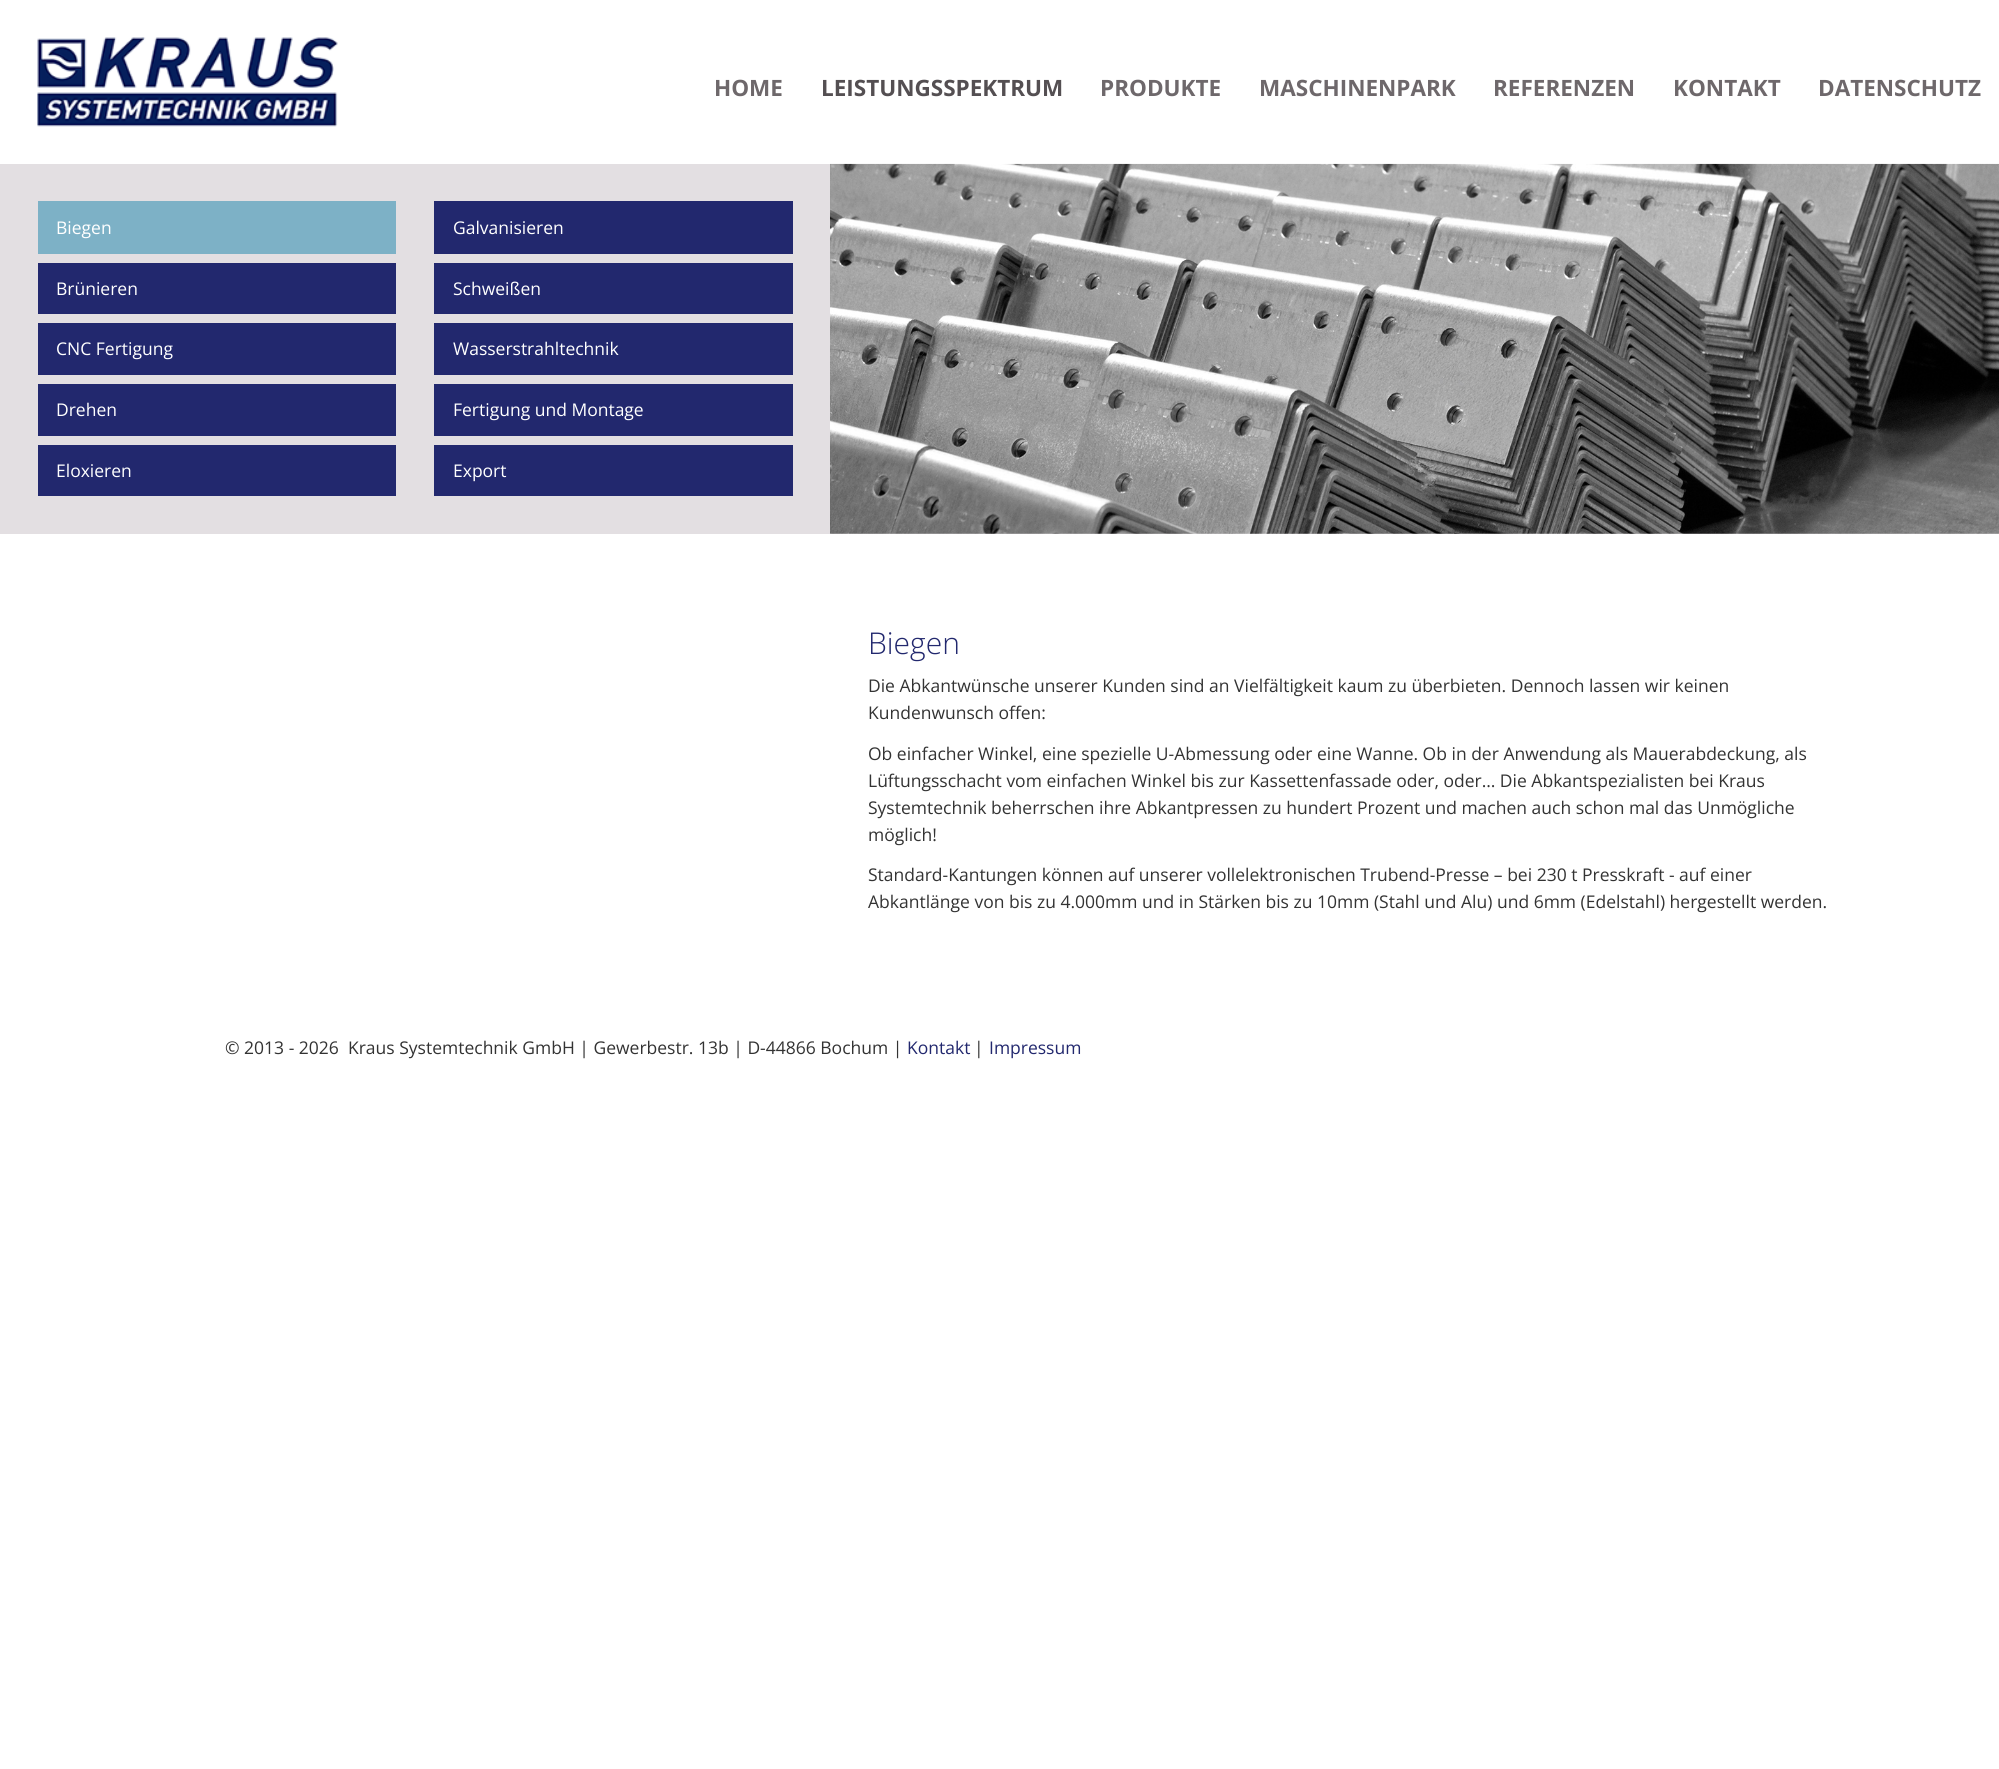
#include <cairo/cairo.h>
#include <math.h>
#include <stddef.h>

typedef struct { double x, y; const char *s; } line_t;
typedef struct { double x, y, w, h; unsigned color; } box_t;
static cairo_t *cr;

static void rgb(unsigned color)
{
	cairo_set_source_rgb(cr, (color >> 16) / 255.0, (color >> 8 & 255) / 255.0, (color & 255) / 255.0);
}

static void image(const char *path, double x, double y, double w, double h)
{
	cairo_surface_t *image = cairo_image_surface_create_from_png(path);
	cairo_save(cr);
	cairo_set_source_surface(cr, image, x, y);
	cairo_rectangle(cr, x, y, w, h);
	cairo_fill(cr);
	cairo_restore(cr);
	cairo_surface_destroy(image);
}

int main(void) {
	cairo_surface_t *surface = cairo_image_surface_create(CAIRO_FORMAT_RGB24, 1999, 1769);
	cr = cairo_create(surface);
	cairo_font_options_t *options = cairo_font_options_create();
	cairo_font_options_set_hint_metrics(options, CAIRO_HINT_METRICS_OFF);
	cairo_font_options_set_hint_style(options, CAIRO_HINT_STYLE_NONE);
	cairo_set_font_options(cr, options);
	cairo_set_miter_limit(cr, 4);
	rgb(0xffffff);
	cairo_paint(cr);
	image("img/1.png", 37, 37, 301, 90);
	{
		static const box_t items[] = {
			{0, 164, 1999, 370, 0xe3dfe2},
			{38, 201, 358, 53, 0x7db1c6},
			{38, 263, 358, 51, 0x22286e},
			{38, 323, 358, 52, 0x22286e},
			{38, 384, 358, 52, 0x22286e},
			{38, 445, 358, 51, 0x22286e},
			{434, 201, 359, 53, 0x22286e},
			{434, 263, 359, 51, 0x22286e},
			{434, 323, 359, 52, 0x22286e},
			{434, 384, 359, 52, 0x22286e},
			{434, 445, 359, 51, 0x22286e},
		};
		for (size_t i = 0; i < sizeof items / sizeof *items; i++) {
			rgb(items[i].color);
			cairo_rectangle(cr, items[i].x, items[i].y, items[i].w, items[i].h);
			cairo_fill(cr);
		}
	}
	image("img/2.png", 830, 163, 1169, 371);
	cairo_select_font_face(cr, "Open Sans", CAIRO_FONT_SLANT_NORMAL, CAIRO_FONT_WEIGHT_BOLD);
	cairo_set_font_size(cr, 22.5);
	rgb(0x6e686b);
	cairo_move_to(cr, 714, 96);
	cairo_show_text(cr, "HOME");
	rgb(0x544f52);
	cairo_move_to(cr, 821, 96);
	cairo_show_text(cr, "LEISTUNGSSPEKTRUM");
	rgb(0x6e686b);
	{
		static const line_t items[] = {
			{1100, 96, "PRODUKTE"},
			{1259, 96, "MASCHINENPARK"},
			{1493, 96, "REFERENZEN"},
			{1673, 96, "KONTAKT"},
			{1818, 96, "DATENSCHUTZ"},
		};
		for (size_t i = 0; i < sizeof items / sizeof *items; i++) {
			cairo_move_to(cr, items[i].x, items[i].y);
			cairo_show_text(cr, items[i].s);
		}
	}
	cairo_select_font_face(cr, "Open Sans", CAIRO_FONT_SLANT_NORMAL, CAIRO_FONT_WEIGHT_NORMAL);
	cairo_set_font_size(cr, 17.5);
	rgb(0xffffff);
	{
		static const line_t items[] = {
			{56, 234, "Biegen"},
			{56, 295, "Brünieren"},
			{56, 355, "CNC Fertigung"},
			{56, 416, "Drehen"},
			{56, 477, "Eloxieren"},
			{453, 234, "Galvanisieren"},
			{453, 295, "Schweißen"},
			{453, 355, "Wasserstrahltechnik"},
			{453, 416, "Fertigung und Montage"},
			{453, 477, "Export"},
		};
		for (size_t i = 0; i < sizeof items / sizeof *items; i++) {
			cairo_move_to(cr, items[i].x, items[i].y);
			cairo_show_text(cr, items[i].s);
		}
	}
	cairo_select_font_face(cr, "Open Sans Light", CAIRO_FONT_SLANT_NORMAL, CAIRO_FONT_WEIGHT_NORMAL);
	cairo_set_font_size(cr, 30);
	rgb(0x22286e);
	cairo_move_to(cr, 868, 654);
	cairo_show_text(cr, "Biegen");
	cairo_select_font_face(cr, "Open Sans", CAIRO_FONT_SLANT_NORMAL, CAIRO_FONT_WEIGHT_NORMAL);
	cairo_set_font_size(cr, 17.5);
	rgb(0x333333);
	{
		static const line_t items[] = {
			{868, 692, "Die Abkantwünsche unserer Kunden sind an Vielfältigkeit kaum zu überbieten. Dennoch lassen wir keinen"},
			{868, 719, "Kundenwunsch offen:"},
			{868, 760, "Ob einfacher Winkel, eine spezielle U-Abmessung oder eine Wanne. Ob in der Anwendung als Mauerabdeckung, als"},
			{868, 787, "Lüftungsschacht vom einfachen Winkel bis zur Kassettenfassade oder, oder… Die Abkantspezialisten bei Kraus"},
			{868, 814, "Systemtechnik beherrschen ihre Abkantpressen zu hundert Prozent und machen auch schon mal das Unmögliche"},
			{868, 841, "möglich!"},
			{868, 881, "Standard-Kantungen können auf unserer vollelektronischen Trubend-Presse – bei 230 t Presskraft - auf einer"},
			{868, 908, "Abkantlänge von bis zu 4.000mm und in Stärken bis zu 10mm (Stahl und Alu) und 6mm (Edelstahl) hergestellt werden."},
			{225, 1054, "© 2013 - 2026"},
			{348, 1054, "Kraus Systemtechnik GmbH | Gewerbestr. 13b | D-44866 Bochum |"},
		};
		for (size_t i = 0; i < sizeof items / sizeof *items; i++) {
			cairo_move_to(cr, items[i].x, items[i].y);
			cairo_show_text(cr, items[i].s);
		}
	}
	rgb(0x22286e);
	cairo_move_to(cr, 907, 1054);
	cairo_show_text(cr, "Kontakt");
	rgb(0x333333);
	cairo_move_to(cr, 974, 1054);
	cairo_show_text(cr, "|");
	rgb(0x22286e);
	cairo_move_to(cr, 989, 1054);
	cairo_show_text(cr, "Impressum");
	cairo_surface_write_to_png(surface, "page.png");
	cairo_font_options_destroy(options);
	cairo_destroy(cr);
	cairo_surface_destroy(surface);
	return 0;
}
